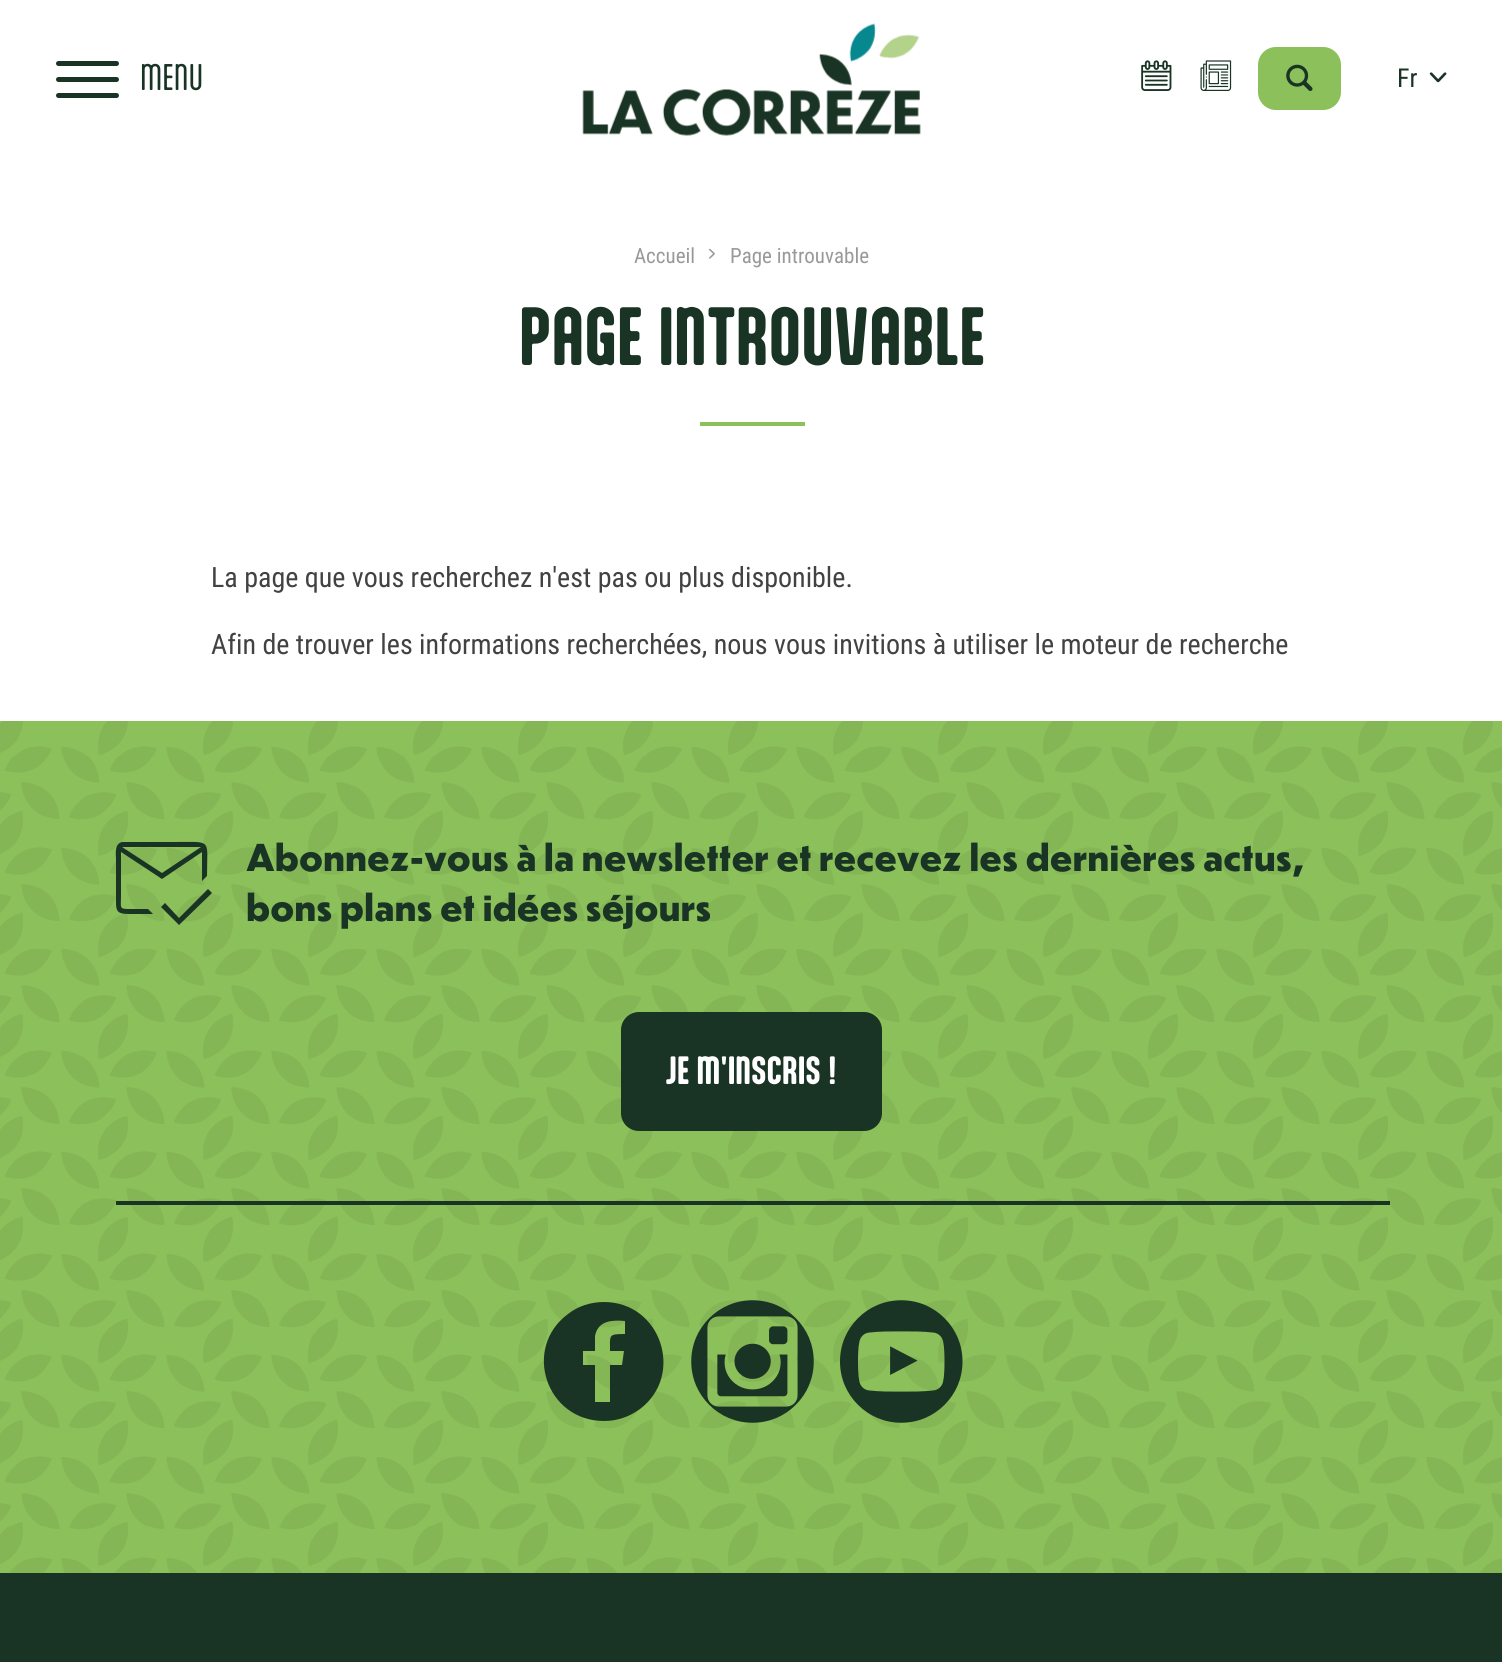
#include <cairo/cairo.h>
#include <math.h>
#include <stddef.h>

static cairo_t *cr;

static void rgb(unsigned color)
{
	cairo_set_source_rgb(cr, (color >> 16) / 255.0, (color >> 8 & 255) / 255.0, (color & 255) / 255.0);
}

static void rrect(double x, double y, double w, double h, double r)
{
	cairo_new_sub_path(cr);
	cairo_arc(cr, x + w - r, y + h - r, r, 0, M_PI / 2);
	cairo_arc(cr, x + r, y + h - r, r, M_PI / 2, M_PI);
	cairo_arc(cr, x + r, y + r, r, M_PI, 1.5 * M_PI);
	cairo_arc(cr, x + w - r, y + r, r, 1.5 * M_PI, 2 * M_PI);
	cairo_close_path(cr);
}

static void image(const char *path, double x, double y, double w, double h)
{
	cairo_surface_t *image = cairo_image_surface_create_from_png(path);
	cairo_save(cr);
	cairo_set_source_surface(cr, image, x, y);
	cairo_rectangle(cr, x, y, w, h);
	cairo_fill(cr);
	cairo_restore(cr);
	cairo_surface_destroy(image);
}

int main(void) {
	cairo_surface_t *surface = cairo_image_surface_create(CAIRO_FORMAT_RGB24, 1502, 1662);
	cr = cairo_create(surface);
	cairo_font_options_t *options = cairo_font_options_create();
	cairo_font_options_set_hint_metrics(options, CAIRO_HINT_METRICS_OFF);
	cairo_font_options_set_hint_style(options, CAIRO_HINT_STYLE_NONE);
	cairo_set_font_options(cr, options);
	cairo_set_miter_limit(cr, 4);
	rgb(0xffffff);
	cairo_paint(cr);
	rgb(0x193424);
	rrect(56, 61, 63, 5, 2.5);
	cairo_fill(cr);
	rrect(56, 77, 63, 5, 2.5);
	cairo_fill(cr);
	rrect(56, 93, 63, 5, 2.5);
	cairo_fill(cr);
	image("img/1.png", 582, 23, 339, 113);
	image("img/2.png", 1141, 60, 31, 31);
	image("img/3.png", 1200, 60, 32, 31);
	rgb(0x8bc05a);
	rrect(1259, 48, 81, 61, 17);
	cairo_fill_preserve(cr);
	cairo_stroke(cr);
	image("img/4.png", 1286, 64, 27, 27);
	image("img/5.png", 1429, 72, 18, 11);
	image("img/6.png", 709, 248, 6, 11);
	cairo_rectangle(cr, 700, 422, 105, 4);
	cairo_fill(cr);
	cairo_rectangle(cr, 0, 721, 1502, 852);
	cairo_fill(cr);
	image("img/7.png", 0, 721, 1502, 852);
	rgb(0x193424);
	cairo_new_path(cr);
	cairo_move_to(cr, 179, 925);
	cairo_line_to(cr, 161, 907);
	cairo_line_to(cr, 165, 903);
	cairo_line_to(cr, 179, 918);
	cairo_line_to(cr, 208, 889);
	cairo_line_to(cr, 212, 893);
	cairo_close_path(cr);
	cairo_move_to(cr, 162, 873);
	cairo_line_to(cr, 201, 847);
	cairo_line_to(cr, 122, 847);
	cairo_close_path(cr);
	cairo_move_to(cr, 162, 879);
	cairo_line_to(cr, 121, 852);
	cairo_line_to(cr, 121, 897);
	cairo_curve_to(cr, 121, 907, 119, 909, 128, 909);
	cairo_line_to(cr, 148, 909);
	cairo_line_to(cr, 153, 914);
	cairo_line_to(cr, 129, 914);
	cairo_curve_to(cr, 115, 914, 116, 910, 116, 896);
	cairo_line_to(cr, 116, 860);
	cairo_curve_to(cr, 116, 854, 114, 844, 122, 842);
	cairo_line_to(cr, 174, 842);
	cairo_curve_to(cr, 213, 842, 207, 838, 207, 876);
	cairo_line_to(cr, 202, 881);
	cairo_line_to(cr, 202, 852);
	cairo_close_path(cr);
	cairo_fill(cr);
	rrect(622, 1013, 259, 117, 17);
	cairo_fill_preserve(cr);
	cairo_stroke(cr);
	cairo_rectangle(cr, 116, 1201, 1274, 4);
	cairo_fill(cr);
	cairo_new_path(cr);
	cairo_move_to(cr, 604, 1421);
	cairo_curve_to(cr, 617, 1421, 629, 1417, 640, 1409);
	cairo_curve_to(cr, 685, 1375, 661, 1302, 604, 1302);
	cairo_curve_to(cr, 591, 1302, 578, 1306, 568, 1314);
	cairo_curve_to(cr, 522, 1348, 546, 1421, 604, 1421);
	cairo_close_path(cr);
	cairo_move_to(cr, 583, 1351);
	cairo_line_to(cr, 595, 1351);
	cairo_line_to(cr, 595, 1336);
	cairo_curve_to(cr, 598, 1320, 613, 1320, 625, 1321);
	cairo_line_to(cr, 625, 1334);
	cairo_curve_to(cr, 608, 1334, 610, 1335, 610, 1351);
	cairo_line_to(cr, 624, 1351);
	cairo_line_to(cr, 622, 1365);
	cairo_line_to(cr, 610, 1365);
	cairo_line_to(cr, 610, 1402);
	cairo_line_to(cr, 595, 1402);
	cairo_line_to(cr, 595, 1365);
	cairo_line_to(cr, 583, 1365);
	cairo_close_path(cr);
	cairo_fill(cr);
	image("img/8.png", 691, 1300, 123, 123);
	image("img/9.png", 840, 1300, 123, 123);
	cairo_rectangle(cr, 0, 1573, 1502, 89);
	cairo_fill(cr);
	cairo_select_font_face(cr, "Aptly", CAIRO_FONT_SLANT_NORMAL, CAIRO_FONT_WEIGHT_NORMAL);
	cairo_set_font_size(cr, 31.5);
	cairo_move_to(cr, 140, 90);
	cairo_show_text(cr, "MENU");
	cairo_select_font_face(cr, "Roboto Condensed", CAIRO_FONT_SLANT_NORMAL, CAIRO_FONT_WEIGHT_NORMAL);
	cairo_set_font_size(cr, 26);
	cairo_move_to(cr, 1397, 87);
	cairo_show_text(cr, "Fr");
	cairo_set_font_size(cr, 21);
	rgb(0x999999);
	cairo_move_to(cr, 634, 263);
	cairo_show_text(cr, "Accueil");
	cairo_move_to(cr, 730, 263);
	cairo_show_text(cr, "Page introuvable");
	cairo_select_font_face(cr, "Aptly", CAIRO_FONT_SLANT_NORMAL, CAIRO_FONT_WEIGHT_BOLD);
	cairo_set_font_size(cr, 70);
	rgb(0x193424);
	cairo_move_to(cr, 519, 365);
	cairo_show_text(cr, "PAGE INTROUVABLE");
	cairo_select_font_face(cr, "Roboto Condensed", CAIRO_FONT_SLANT_NORMAL, CAIRO_FONT_WEIGHT_NORMAL);
	cairo_set_font_size(cr, 28);
	rgb(0x424242);
	cairo_move_to(cr, 211, 587);
	cairo_show_text(cr, "La page que vous recherchez n'est pas ou plus disponible.");
	cairo_move_to(cr, 211, 654);
	cairo_show_text(cr, "Afin de trouver les informations recherchées, nous vous invitions à utiliser le moteur de recherche");
	cairo_select_font_face(cr, "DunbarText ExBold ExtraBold", CAIRO_FONT_SLANT_NORMAL, CAIRO_FONT_WEIGHT_NORMAL);
	cairo_set_font_size(cr, 36.4);
	rgb(0x193424);
	cairo_move_to(cr, 246, 871);
	cairo_show_text(cr, "Abonnez-vous à la newsletter et recevez les dernières actus,");
	cairo_move_to(cr, 246, 921);
	cairo_show_text(cr, "bons plans et idées séjours");
	cairo_select_font_face(cr, "Aptly", CAIRO_FONT_SLANT_NORMAL, CAIRO_FONT_WEIGHT_BOLD);
	cairo_set_font_size(cr, 33.5);
	rgb(0xffffff);
	cairo_move_to(cr, 666, 1084);
	cairo_show_text(cr, "JE M'INSCRIS !");
	cairo_surface_write_to_png(surface, "page.png");
	cairo_font_options_destroy(options);
	cairo_destroy(cr);
	cairo_surface_destroy(surface);
	return 0;
}
